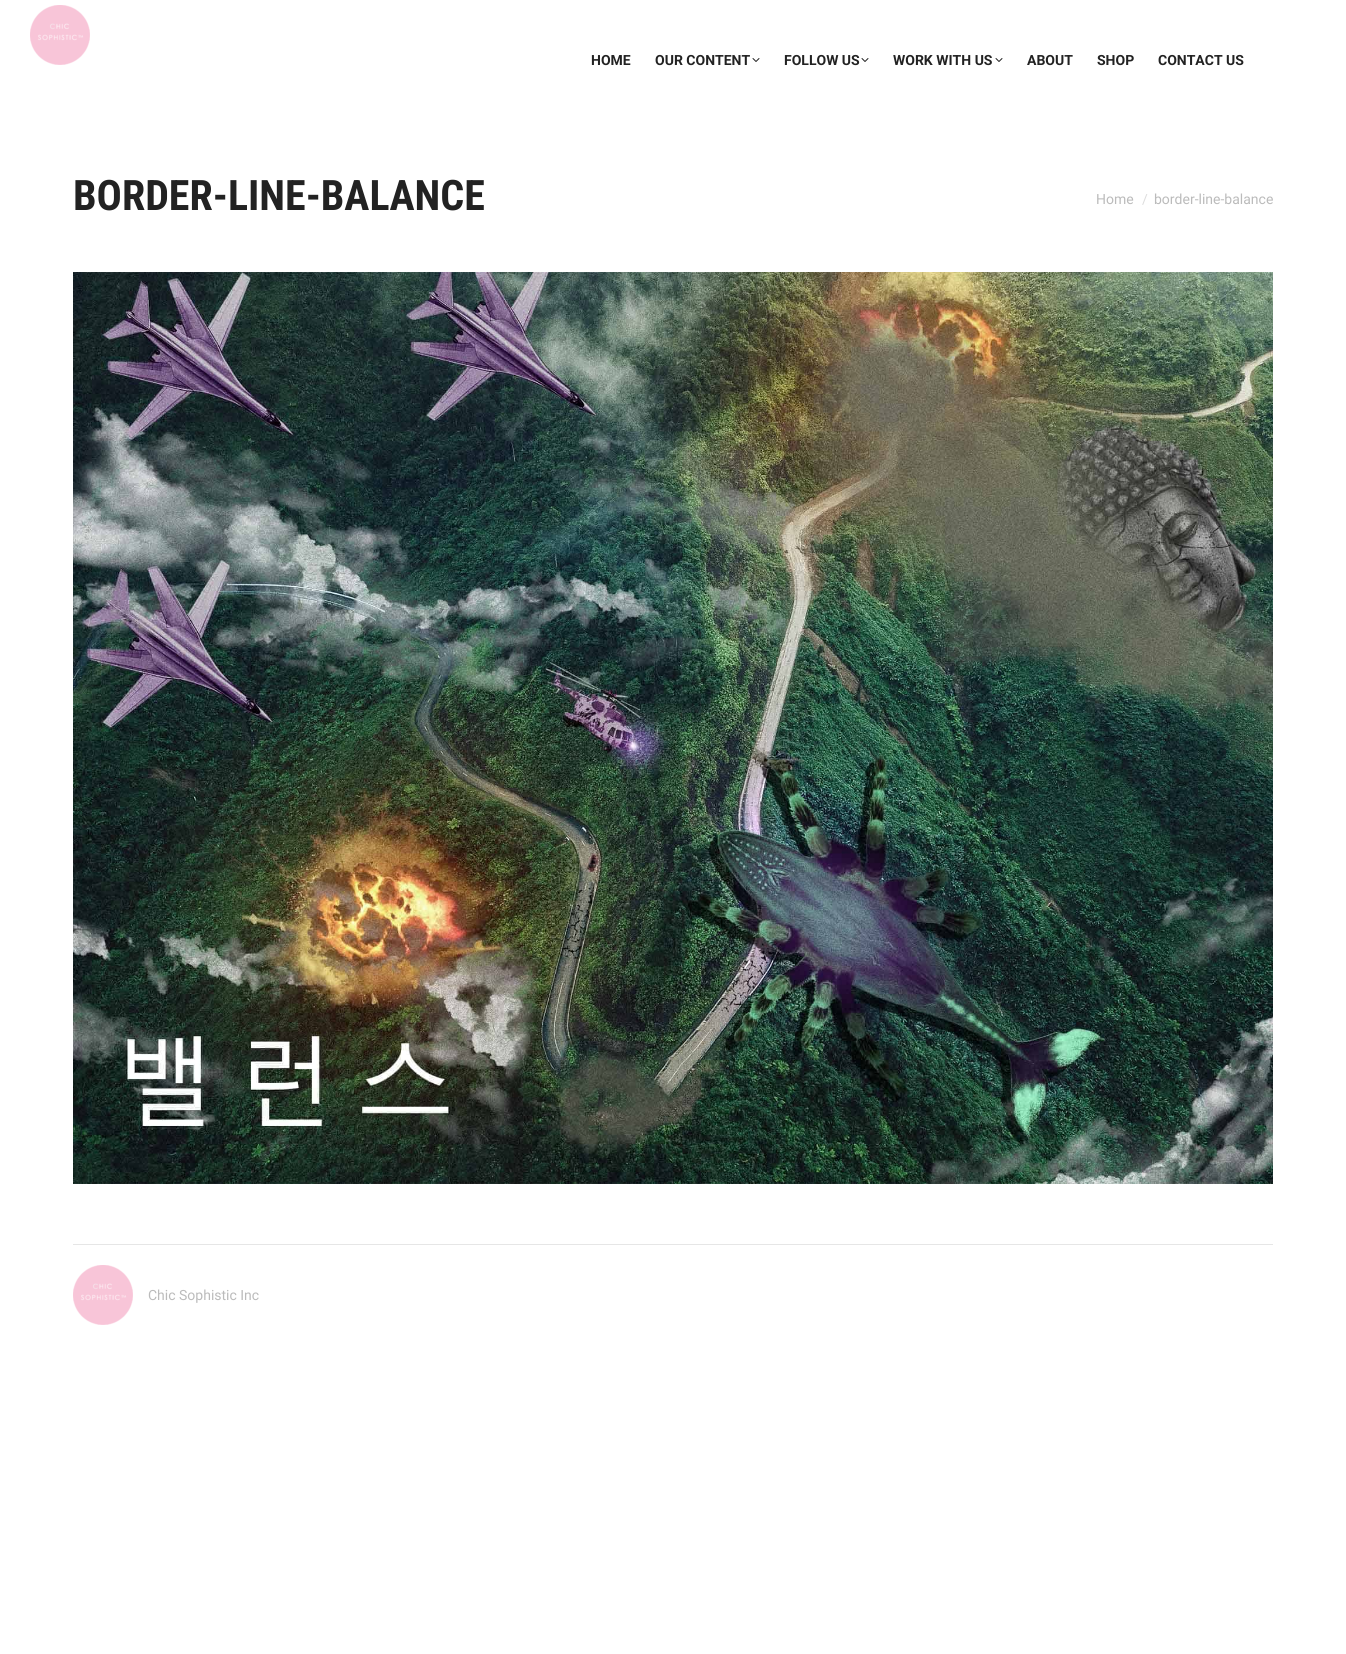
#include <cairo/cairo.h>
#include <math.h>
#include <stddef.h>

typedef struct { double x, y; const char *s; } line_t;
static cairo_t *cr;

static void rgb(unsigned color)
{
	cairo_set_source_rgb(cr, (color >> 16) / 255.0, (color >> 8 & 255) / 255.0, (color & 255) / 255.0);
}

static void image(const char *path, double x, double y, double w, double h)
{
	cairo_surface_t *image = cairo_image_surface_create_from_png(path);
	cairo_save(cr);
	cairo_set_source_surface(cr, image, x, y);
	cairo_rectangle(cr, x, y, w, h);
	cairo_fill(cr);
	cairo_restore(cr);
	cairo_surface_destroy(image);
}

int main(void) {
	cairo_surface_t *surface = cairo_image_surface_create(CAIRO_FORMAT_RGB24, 1346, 1654);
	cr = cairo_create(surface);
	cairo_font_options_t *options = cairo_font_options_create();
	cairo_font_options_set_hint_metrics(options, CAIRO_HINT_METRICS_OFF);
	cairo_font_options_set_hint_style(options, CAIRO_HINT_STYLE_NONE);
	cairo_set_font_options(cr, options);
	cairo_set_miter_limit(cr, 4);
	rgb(0xffffff);
	cairo_paint(cr);
	image("img/1.png", 30, 5, 60, 60);
	image("img/2.png", 752, 58, 8, 4);
	image("img/2.png", 861, 58, 8, 4);
	image("img/2.png", 995, 58, 8, 4);
	image("img/3.png", 73, 272, 1200, 912);
	rgb(0xe6e6e6);
	cairo_rectangle(cr, 73, 1244, 1200, 1);
	cairo_fill(cr);
	image("img/1.png", 73, 1265, 60, 60);
	cairo_select_font_face(cr, "Roboto", CAIRO_FONT_SLANT_NORMAL, CAIRO_FONT_WEIGHT_BOLD);
	cairo_set_font_size(cr, 14);
	rgb(0x222222);
	{
		static const line_t items[] = {
			{591, 65, "HOME"},
			{655, 65, "OUR CONTENT"},
			{784, 65, "FOLLOW US"},
			{893, 65, "WORK WITH US"},
			{1027, 65, "ABOUT"},
			{1097, 65, "SHOP"},
			{1158, 65, "CONTACT US"},
		};
		for (size_t i = 0; i < sizeof items / sizeof *items; i++) {
			cairo_move_to(cr, items[i].x, items[i].y);
			cairo_show_text(cr, items[i].s);
		}
	}
	cairo_select_font_face(cr, "Roboto Condensed", CAIRO_FONT_SLANT_NORMAL, CAIRO_FONT_WEIGHT_BOLD);
	cairo_set_font_size(cr, 42);
	cairo_move_to(cr, 73, 210);
	cairo_show_text(cr, "BORDER-LINE-BALANCE");
	cairo_select_font_face(cr, "Roboto", CAIRO_FONT_SLANT_NORMAL, CAIRO_FONT_WEIGHT_NORMAL);
	cairo_set_font_size(cr, 14);
	rgb(0xbbbbbb);
	cairo_move_to(cr, 1096, 204);
	cairo_show_text(cr, "Home");
	rgb(0xdddddd);
	cairo_move_to(cr, 1142, 204);
	cairo_show_text(cr, "/");
	rgb(0xbbbbbb);
	cairo_move_to(cr, 1154, 204);
	cairo_show_text(cr, "border-line-balance");
	cairo_move_to(cr, 148, 1300);
	cairo_show_text(cr, "Chic Sophistic Inc");
	cairo_surface_write_to_png(surface, "page.png");
	cairo_font_options_destroy(options);
	cairo_destroy(cr);
	cairo_surface_destroy(surface);
	return 0;
}
